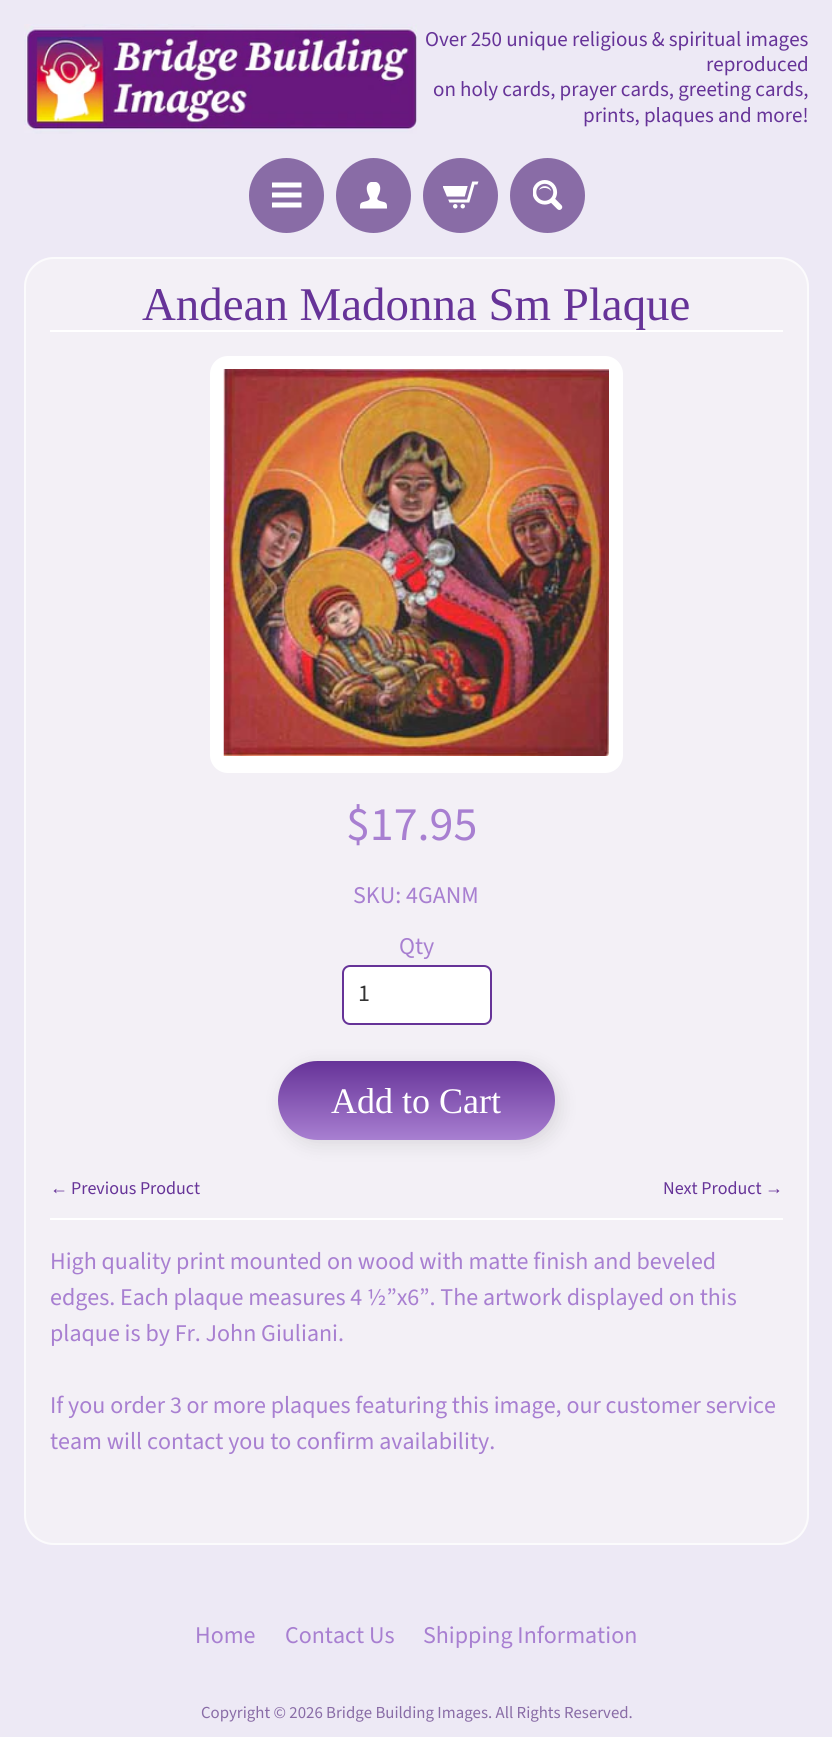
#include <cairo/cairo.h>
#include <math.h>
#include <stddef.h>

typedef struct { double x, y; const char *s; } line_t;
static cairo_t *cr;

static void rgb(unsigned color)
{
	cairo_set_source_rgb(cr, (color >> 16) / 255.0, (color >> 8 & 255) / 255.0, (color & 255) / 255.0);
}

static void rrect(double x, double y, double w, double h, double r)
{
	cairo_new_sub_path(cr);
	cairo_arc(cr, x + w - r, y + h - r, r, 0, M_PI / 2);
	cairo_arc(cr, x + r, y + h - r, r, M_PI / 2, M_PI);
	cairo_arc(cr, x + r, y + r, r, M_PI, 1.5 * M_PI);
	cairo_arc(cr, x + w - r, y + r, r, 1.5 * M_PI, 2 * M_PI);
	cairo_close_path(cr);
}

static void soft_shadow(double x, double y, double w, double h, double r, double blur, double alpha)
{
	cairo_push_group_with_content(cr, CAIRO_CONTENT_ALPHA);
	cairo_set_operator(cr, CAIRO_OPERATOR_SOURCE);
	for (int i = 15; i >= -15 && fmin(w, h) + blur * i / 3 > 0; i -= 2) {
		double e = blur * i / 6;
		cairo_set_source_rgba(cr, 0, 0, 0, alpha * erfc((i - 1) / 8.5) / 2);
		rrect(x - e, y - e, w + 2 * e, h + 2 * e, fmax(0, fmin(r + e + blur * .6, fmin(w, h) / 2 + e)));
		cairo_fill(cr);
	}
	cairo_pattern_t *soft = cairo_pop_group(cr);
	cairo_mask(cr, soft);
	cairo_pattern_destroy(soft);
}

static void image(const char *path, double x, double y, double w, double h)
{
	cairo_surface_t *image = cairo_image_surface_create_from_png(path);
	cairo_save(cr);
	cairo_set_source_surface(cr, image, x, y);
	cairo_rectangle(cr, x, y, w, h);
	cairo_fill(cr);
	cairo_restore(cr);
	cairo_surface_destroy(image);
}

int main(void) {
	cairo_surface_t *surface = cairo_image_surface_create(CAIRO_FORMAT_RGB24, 832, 1737);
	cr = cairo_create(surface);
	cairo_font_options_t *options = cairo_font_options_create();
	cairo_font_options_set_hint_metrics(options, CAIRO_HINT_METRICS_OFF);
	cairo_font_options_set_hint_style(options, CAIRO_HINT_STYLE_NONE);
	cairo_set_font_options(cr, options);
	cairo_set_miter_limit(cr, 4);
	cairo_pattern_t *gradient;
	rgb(0xede9f5);
	cairo_paint(cr);
	image("img/1.png", 24, 24, 393, 110);
	rgb(0x896ca6);
	cairo_arc(cr, 286.5, 195.5, 35, 0, 2 * M_PI);
	cairo_fill_preserve(cr);
	cairo_set_line_width(cr, 5);
	cairo_stroke(cr);
	image("img/2.png", 272, 182, 30, 26);
	cairo_arc(cr, 373.5, 195.5, 35, 0, 2 * M_PI);
	cairo_fill_preserve(cr);
	cairo_stroke(cr);
	image("img/3.png", 360, 182, 27, 27);
	cairo_arc(cr, 460.5, 195.5, 35, 0, 2 * M_PI);
	cairo_fill_preserve(cr);
	cairo_stroke(cr);
	image("img/4.png", 443, 181, 36, 28);
	cairo_arc(cr, 547.5, 195.5, 35, 0, 2 * M_PI);
	cairo_fill_preserve(cr);
	cairo_stroke(cr);
	image("img/5.png", 533, 180, 30, 30);
	rgb(0xf3f0f6);
	rrect(24, 257, 785, 1288, 30);
	cairo_fill(cr);
	rrect(25, 258, 783, 1286, 29);
	cairo_set_source_rgba(cr, 1, 1, 1, 0.7);
	cairo_set_line_width(cr, 2);
	cairo_stroke(cr);
	rgb(0xffffff);
	cairo_rectangle(cr, 50, 330, 733, 2);
	cairo_fill(cr);
	rrect(210, 356, 413, 417, 18);
	cairo_fill(cr);
	image("img/6.png", 223, 369, 386, 387);
	rrect(343, 966, 148, 58, 7);
	cairo_fill_preserve(cr);
	rgb(0x663398);
	cairo_stroke(cr);
	rgb(0x000000);
	soft_shadow(282, 1065, 278, 80, 40, 9, 0.1);
	gradient = cairo_pattern_create_linear(416, 1061, 416, 1140);
	cairo_pattern_add_color_stop_rgba(gradient, 0, 0.4, 0.2, 0.596, 1);
	cairo_pattern_add_color_stop_rgba(gradient, 1, 0.659, 0.498, 0.82, 1);
	cairo_set_source(cr, gradient);
	cairo_pattern_destroy(gradient);
	rrect(278, 1061, 277, 79, 39.5);
	cairo_fill(cr);
	rgb(0xffffff);
	cairo_rectangle(cr, 50, 1218, 733, 2);
	cairo_fill(cr);
	cairo_select_font_face(cr, "Source Sans Pro", CAIRO_FONT_SLANT_NORMAL, CAIRO_FONT_WEIGHT_NORMAL);
	cairo_set_font_size(cr, 21);
	rgb(0x663398);
	{
		static const line_t items[] = {
			{425, 46, "Over 250 unique religious & spiritual images"},
			{706, 71, "reproduced"},
			{433, 96, "on holy cards, prayer cards, greeting cards,"},
			{583, 122, "prints, plaques and more!"},
		};
		for (size_t i = 0; i < sizeof items / sizeof *items; i++) {
			cairo_move_to(cr, items[i].x, items[i].y);
			cairo_show_text(cr, items[i].s);
		}
	}
	cairo_select_font_face(cr, "Liberation Serif", CAIRO_FONT_SLANT_NORMAL, CAIRO_FONT_WEIGHT_NORMAL);
	cairo_set_font_size(cr, 46.9);
	cairo_move_to(cr, 142, 320);
	cairo_show_text(cr, "Andean Madonna Sm Plaque");
	cairo_select_font_face(cr, "Source Sans Pro", CAIRO_FONT_SLANT_NORMAL, CAIRO_FONT_WEIGHT_NORMAL);
	cairo_set_font_size(cr, 48);
	rgb(0xa87fd1);
	cairo_move_to(cr, 346, 840);
	cairo_show_text(cr, "$17.95");
	cairo_set_font_size(cr, 24);
	cairo_move_to(cr, 353, 903);
	cairo_show_text(cr, "SKU: 4GANM");
	cairo_move_to(cr, 399, 954);
	cairo_show_text(cr, "Qty");
	rgb(0x333333);
	cairo_move_to(cr, 358, 1001);
	cairo_show_text(cr, "1");
	cairo_select_font_face(cr, "Liberation Serif", CAIRO_FONT_SLANT_NORMAL, CAIRO_FONT_WEIGHT_NORMAL);
	cairo_set_font_size(cr, 36);
	rgb(0xffffff);
	cairo_move_to(cr, 331, 1113);
	cairo_show_text(cr, "Add to Cart");
	cairo_select_font_face(cr, "Liberation Sans", CAIRO_FONT_SLANT_NORMAL, CAIRO_FONT_WEIGHT_NORMAL);
	cairo_set_font_size(cr, 18);
	rgb(0x663398);
	cairo_move_to(cr, 50, 1194);
	cairo_show_text(cr, "←");
	cairo_select_font_face(cr, "Source Sans Pro", CAIRO_FONT_SLANT_NORMAL, CAIRO_FONT_WEIGHT_NORMAL);
	cairo_move_to(cr, 71, 1194);
	cairo_show_text(cr, "Previous Product");
	cairo_move_to(cr, 663, 1194);
	cairo_show_text(cr, "Next Product");
	cairo_select_font_face(cr, "Liberation Sans", CAIRO_FONT_SLANT_NORMAL, CAIRO_FONT_WEIGHT_NORMAL);
	cairo_move_to(cr, 765, 1194);
	cairo_show_text(cr, "→");
	cairo_select_font_face(cr, "Source Sans Pro", CAIRO_FONT_SLANT_NORMAL, CAIRO_FONT_WEIGHT_NORMAL);
	cairo_set_font_size(cr, 24);
	rgb(0xa87fd1);
	{
		static const line_t items[] = {
			{50, 1269, "High quality print mounted on wood with matte finish and beveled"},
			{50, 1305, "edges. Each plaque measures 4 ½”x6”. The artwork displayed on this"},
			{50, 1341, "plaque is by Fr. John Giuliani."},
			{50, 1413, "If you order 3 or more plaques featuring this image, our customer service"},
			{50, 1449, "team will contact you to confirm availability."},
			{195, 1643, "Home"},
			{285, 1643, "Contact Us"},
			{423, 1643, "Shipping Information"},
		};
		for (size_t i = 0; i < sizeof items / sizeof *items; i++) {
			cairo_move_to(cr, items[i].x, items[i].y);
			cairo_show_text(cr, items[i].s);
		}
	}
	cairo_set_font_size(cr, 16.8);
	rgb(0x896ca6);
	cairo_move_to(cr, 201, 1718);
	cairo_show_text(cr, "Copyright © 2026 Bridge Building Images. All Rights Reserved.");
	cairo_surface_write_to_png(surface, "page.png");
	cairo_font_options_destroy(options);
	cairo_destroy(cr);
	cairo_surface_destroy(surface);
	return 0;
}
